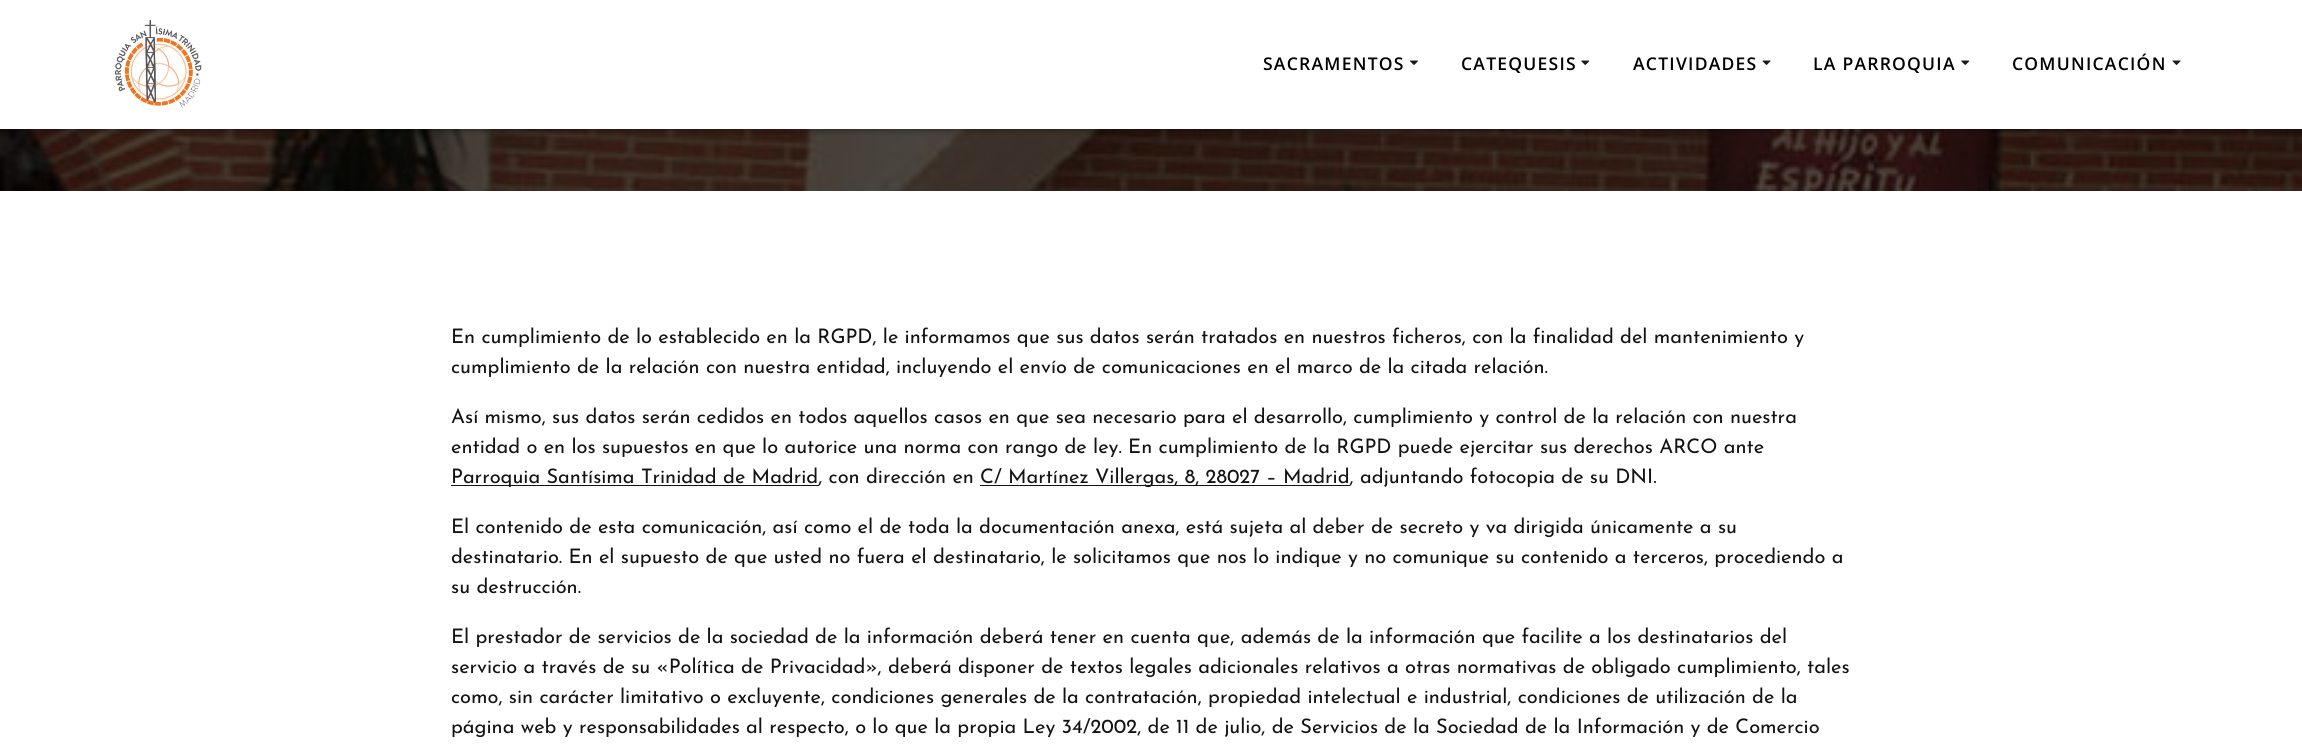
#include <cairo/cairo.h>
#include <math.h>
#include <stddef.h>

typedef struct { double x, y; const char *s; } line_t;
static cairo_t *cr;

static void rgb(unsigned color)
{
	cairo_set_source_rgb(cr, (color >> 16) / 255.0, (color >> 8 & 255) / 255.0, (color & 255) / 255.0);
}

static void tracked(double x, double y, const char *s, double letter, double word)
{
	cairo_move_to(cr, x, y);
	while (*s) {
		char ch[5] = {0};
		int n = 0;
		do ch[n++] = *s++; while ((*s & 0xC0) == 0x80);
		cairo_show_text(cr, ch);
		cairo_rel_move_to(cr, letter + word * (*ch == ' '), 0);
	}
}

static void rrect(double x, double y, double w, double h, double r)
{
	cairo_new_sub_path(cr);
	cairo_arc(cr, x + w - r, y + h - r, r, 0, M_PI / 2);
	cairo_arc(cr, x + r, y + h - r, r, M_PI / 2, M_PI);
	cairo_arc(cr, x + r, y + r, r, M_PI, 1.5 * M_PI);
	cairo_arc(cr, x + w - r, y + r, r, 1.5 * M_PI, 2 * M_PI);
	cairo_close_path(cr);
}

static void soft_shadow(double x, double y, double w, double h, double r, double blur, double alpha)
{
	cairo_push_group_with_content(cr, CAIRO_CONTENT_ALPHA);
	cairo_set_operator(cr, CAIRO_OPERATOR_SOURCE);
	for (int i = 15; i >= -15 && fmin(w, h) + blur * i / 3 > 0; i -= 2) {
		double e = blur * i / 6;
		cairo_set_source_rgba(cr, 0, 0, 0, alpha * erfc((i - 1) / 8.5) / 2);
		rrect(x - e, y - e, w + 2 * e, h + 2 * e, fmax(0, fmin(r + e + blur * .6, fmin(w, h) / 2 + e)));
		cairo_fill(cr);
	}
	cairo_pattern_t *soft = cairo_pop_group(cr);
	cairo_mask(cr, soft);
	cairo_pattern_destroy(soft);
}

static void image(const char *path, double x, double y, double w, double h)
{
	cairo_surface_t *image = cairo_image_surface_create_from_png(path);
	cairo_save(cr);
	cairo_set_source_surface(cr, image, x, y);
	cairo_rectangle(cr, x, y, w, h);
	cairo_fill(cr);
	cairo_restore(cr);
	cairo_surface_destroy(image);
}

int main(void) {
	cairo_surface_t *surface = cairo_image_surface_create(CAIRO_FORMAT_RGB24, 2302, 745);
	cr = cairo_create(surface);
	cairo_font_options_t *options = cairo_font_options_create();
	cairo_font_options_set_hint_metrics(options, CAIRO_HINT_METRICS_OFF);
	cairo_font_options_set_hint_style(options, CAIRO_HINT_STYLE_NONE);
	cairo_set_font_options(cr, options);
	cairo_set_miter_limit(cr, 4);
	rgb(0xffffff);
	cairo_paint(cr);
	image("img/5.png", 0, 129, 2302, 62);
	rgb(0x000000);
	soft_shadow(-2, -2, 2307, 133, 0, 3, 0.33);
	rgb(0xffffff);
	cairo_rectangle(cr, 0, 0, 2302, 129);
	cairo_fill(cr);
	image("img/1.png", 115, 20, 87, 88);
	image("img/2.png", 1410, 60, 8, 5);
	image("img/3.png", 1581, 60, 9, 5);
	image("img/4.png", 1762, 60, 9, 5);
	image("img/3.png", 1961, 60, 9, 5);
	image("img/4.png", 2172, 60, 9, 5);
	rgb(0x131313);
	cairo_rectangle(cr, 451, 485, 368, 1);
	cairo_fill(cr);
	cairo_rectangle(cr, 980, 485, 370, 1);
	cairo_fill(cr);
	cairo_select_font_face(cr, "Open Sans SemiBold", CAIRO_FONT_SLANT_NORMAL, CAIRO_FONT_WEIGHT_NORMAL);
	cairo_set_font_size(cr, 17.5);
	rgb(0x000000);
	{
		static const line_t items[] = {
			{1263, 70, "SACRAMENTOS"},
			{1461, 70, "CATEQUESIS"},
			{1633, 70, "ACTIVIDADES"},
			{1813, 70, "LA PARROQUIA"},
			{2012, 70, "COMUNICACIÓN"},
		};
		for (size_t i = 0; i < sizeof items / sizeof *items; i++) {
			tracked(items[i].x, items[i].y, items[i].s, 1.25, 0);
		}
	}
	cairo_select_font_face(cr, "Josefin Sans", CAIRO_FONT_SLANT_NORMAL, CAIRO_FONT_WEIGHT_NORMAL);
	cairo_set_font_size(cr, 20);
	rgb(0x131313);
	{
		static const line_t items[] = {
			{451, 343, "En cumplimiento de lo establecido en la RGPD, le informamos que sus datos serán tratados en nuestros ficheros, con la finalidad del mantenimiento y"},
			{451, 373, "cumplimiento de la relación con nuestra entidad, incluyendo el envío de comunicaciones en el marco de la citada relación."},
			{451, 423, "Así mismo, sus datos serán cedidos en todos aquellos casos en que sea necesario para el desarrollo, cumplimiento y control de la relación con nuestra"},
			{451, 453, "entidad o en los supuestos en que lo autorice una norma con rango de ley. En cumplimiento de la RGPD puede ejercitar sus derechos ARCO ante"},
			{451, 483, "Parroquia Santísima Trinidad de Madrid, con dirección en"},
			{980, 483, "C/ Martínez Villergas, 8, 28027 – Madrid, adjuntando fotocopia de su DNI."},
			{451, 533, "El contenido de esta comunicación, así como el de toda la documentación anexa, está sujeta al deber de secreto y va dirigida únicamente a su"},
			{451, 563, "destinatario. En el supuesto de que usted no fuera el destinatario, le solicitamos que nos lo indique y no comunique su contenido a terceros, procediendo a"},
			{451, 593, "su destrucción."},
			{451, 643, "El prestador de servicios de la sociedad de la información deberá tener en cuenta que, además de la información que facilite a los destinatarios del"},
			{451, 673, "servicio a través de su «Política de Privacidad», deberá disponer de textos legales adicionales relativos a otras normativas de obligado cumplimiento, tales"},
			{451, 703, "como, sin carácter limitativo o excluyente, condiciones generales de la contratación, propiedad intelectual e industrial, condiciones de utilización de la"},
			{451, 733, "página web y responsabilidades al respecto, o lo que la propia Ley 34/2002, de 11 de julio, de Servicios de la Sociedad de la Información y de Comercio"},
		};
		for (size_t i = 0; i < sizeof items / sizeof *items; i++) {
			cairo_move_to(cr, items[i].x, items[i].y);
			cairo_show_text(cr, items[i].s);
		}
	}
	cairo_surface_write_to_png(surface, "page.png");
	cairo_font_options_destroy(options);
	cairo_destroy(cr);
	cairo_surface_destroy(surface);
	return 0;
}
